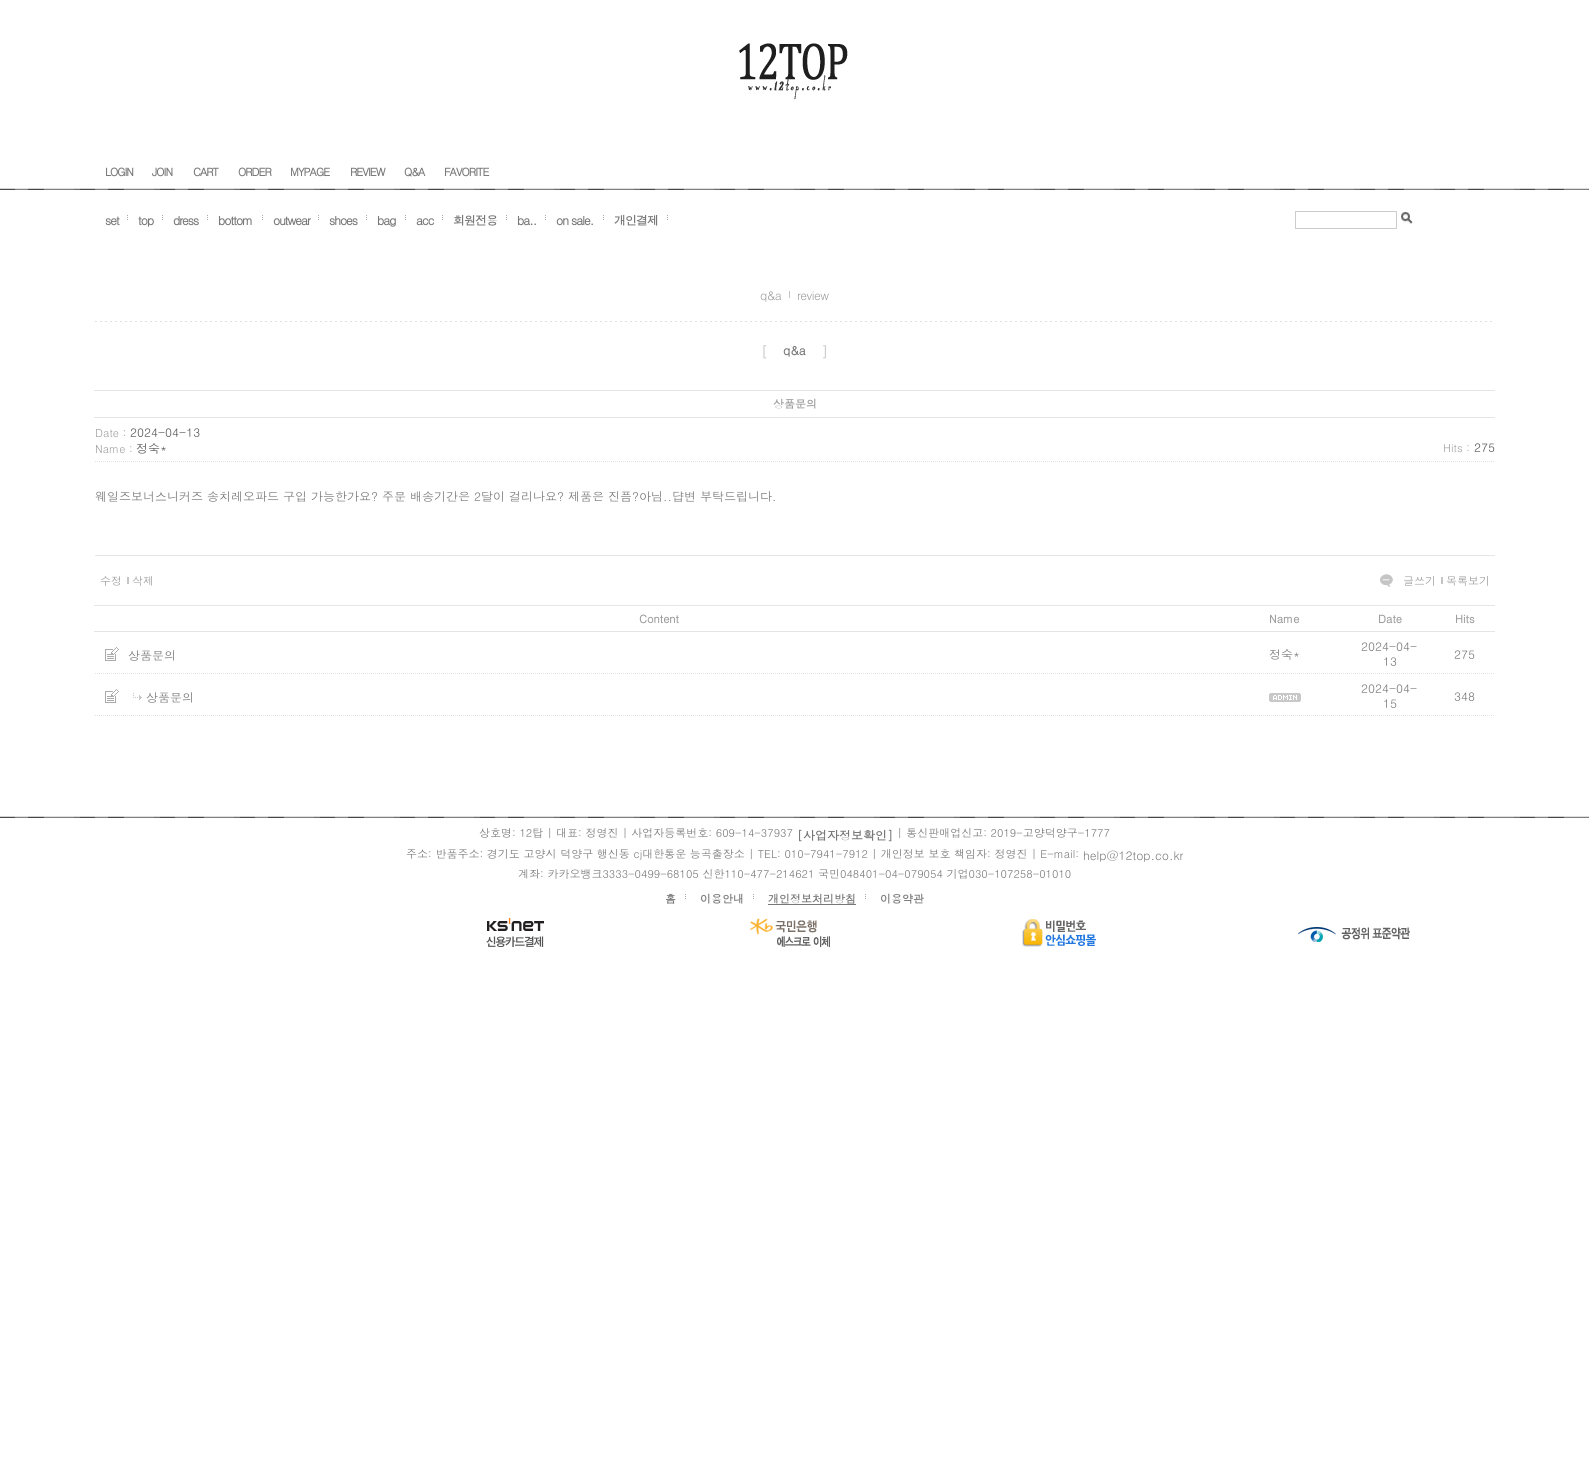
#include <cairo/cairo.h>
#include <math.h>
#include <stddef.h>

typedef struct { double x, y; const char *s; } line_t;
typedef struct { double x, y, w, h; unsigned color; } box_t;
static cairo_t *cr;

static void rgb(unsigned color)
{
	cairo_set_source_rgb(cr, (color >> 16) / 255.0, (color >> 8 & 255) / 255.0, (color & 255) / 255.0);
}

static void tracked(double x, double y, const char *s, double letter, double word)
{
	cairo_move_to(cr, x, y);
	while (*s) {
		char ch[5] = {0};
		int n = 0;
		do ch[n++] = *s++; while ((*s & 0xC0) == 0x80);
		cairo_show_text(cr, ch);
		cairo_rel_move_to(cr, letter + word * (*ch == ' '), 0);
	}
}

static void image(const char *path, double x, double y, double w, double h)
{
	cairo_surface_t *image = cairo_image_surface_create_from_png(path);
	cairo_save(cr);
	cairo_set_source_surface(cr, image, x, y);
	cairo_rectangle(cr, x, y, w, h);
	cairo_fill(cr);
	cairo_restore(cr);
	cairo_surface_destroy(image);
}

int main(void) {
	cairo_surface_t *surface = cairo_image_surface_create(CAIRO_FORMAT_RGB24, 1589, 1465);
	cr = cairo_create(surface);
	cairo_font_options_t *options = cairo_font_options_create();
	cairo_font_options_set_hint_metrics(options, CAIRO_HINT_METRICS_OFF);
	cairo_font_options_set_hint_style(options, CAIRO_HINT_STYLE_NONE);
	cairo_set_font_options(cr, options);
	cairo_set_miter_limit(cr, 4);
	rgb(0xffffff);
	cairo_paint(cr);
	image("img/1.png", 0, 188, 1589, 2);
	image("img/2.png", 739, 43, 109, 57);
	image("img/3.png", 127, 215, 1, 5);
	image("img/3.png", 162, 215, 1, 5);
	image("img/3.png", 207, 215, 1, 5);
	image("img/3.png", 262, 215, 1, 5);
	image("img/3.png", 318, 215, 1, 5);
	image("img/3.png", 366, 215, 1, 5);
	image("img/3.png", 405, 215, 1, 5);
	image("img/3.png", 442, 215, 1, 5);
	image("img/3.png", 506, 215, 1, 5);
	image("img/3.png", 545, 215, 1, 5);
	image("img/3.png", 603, 215, 1, 5);
	image("img/3.png", 667, 215, 1, 5);
	cairo_rectangle(cr, 1295.5, 211.5, 101, 17);
	rgb(0xcccccc);
	cairo_set_line_width(cr, 1);
	cairo_stroke(cr);
	image("img/4.png", 1401, 212, 12, 12);
	image("img/5.png", 95, 321, 1397, 1);
	{
		static const box_t items[] = {
			{789, 291, 1, 7, 0xc5c5c5},
			{94, 390, 1401, 1, 0xe5e5e5},
			{94, 417, 1401, 1, 0xe5e5e5},
		};
		for (size_t i = 0; i < sizeof items / sizeof *items; i++) {
			rgb(items[i].color);
			cairo_rectangle(cr, items[i].x, items[i].y, items[i].w, items[i].h);
			cairo_fill(cr);
		}
	}
	image("img/6.png", 95, 461, 1399, 1);
	cairo_rectangle(cr, 95, 555, 1400, 1);
	cairo_fill(cr);
	rgb(0xc5c5c5);
	cairo_rectangle(cr, 127, 577, 2, 7);
	cairo_fill(cr);
	image("img/7.png", 1380, 574, 13, 13);
	{
		static const box_t items[] = {
			{1441, 577, 2, 7, 0xc5c5c5},
			{94, 605, 1401, 1, 0xe5e5e5},
			{94, 631, 1401, 1, 0xe5e5e5},
		};
		for (size_t i = 0; i < sizeof items / sizeof *items; i++) {
			rgb(items[i].color);
			cairo_rectangle(cr, items[i].x, items[i].y, items[i].w, items[i].h);
			cairo_fill(cr);
		}
	}
	image("img/8.png", 95, 673, 1129, 1);
	image("img/9.png", 105, 647, 14, 14);
	image("img/10.png", 1225, 673, 119, 1);
	image("img/11.png", 1345, 673, 89, 1);
	image("img/12.png", 1435, 673, 59, 1);
	image("img/8.png", 95, 715, 1129, 1);
	image("img/9.png", 105, 689, 14, 14);
	image("img/13.png", 133, 693, 9, 7);
	image("img/10.png", 1225, 715, 119, 1);
	image("img/14.png", 1269, 693, 32, 9);
	image("img/11.png", 1345, 715, 89, 1);
	image("img/12.png", 1435, 715, 59, 1);
	image("img/1.png", 0, 816, 1589, 2);
	image("img/3.png", 685, 894, 1, 5);
	image("img/3.png", 753, 894, 1, 5);
	rgb(0x787878);
	cairo_rectangle(cr, 768, 904, 88, 1);
	cairo_fill(cr);
	image("img/3.png", 865, 894, 1, 5);
	image("img/15.png", 486, 918, 58, 29);
	image("img/16.png", 749, 918, 81, 29);
	image("img/17.png", 1022, 919, 74, 28);
	image("img/18.png", 1298, 927, 112, 15);
	cairo_select_font_face(cr, "Dotum", CAIRO_FONT_SLANT_NORMAL, CAIRO_FONT_WEIGHT_BOLD);
	cairo_set_font_size(cr, 11);
	{
		static const line_t items[] = {
			{105, 176, "LOGIN"},
			{152, 176, "JOIN"},
			{193, 176, "CART"},
			{238, 176, "ORDER"},
			{290, 176, "MYPAGE"},
			{350, 176, "REVIEW"},
			{404, 176, "Q&A"},
			{444, 176, "FAVORITE"},
		};
		for (size_t i = 0; i < sizeof items / sizeof *items; i++) {
			tracked(items[i].x, items[i].y, items[i].s, -1, 0);
		}
	}
	cairo_set_font_size(cr, 12);
	{
		static const line_t items[] = {
			{105, 225, "set"},
			{138, 225, "top"},
			{173, 225, "dress"},
			{218, 225, "bottom"},
			{273, 225, "outwear"},
			{329, 225, "shoes"},
			{377, 225, "bag"},
			{416, 225, "acc"},
			{453, 225, "회원전용"},
			{517, 225, "ba.."},
			{556, 225, "on sale."},
			{614, 225, "개인결제"},
		};
		for (size_t i = 0; i < sizeof items / sizeof *items; i++) {
			tracked(items[i].x, items[i].y, items[i].s, -1, 0);
		}
	}
	cairo_select_font_face(cr, "Dotum", CAIRO_FONT_SLANT_NORMAL, CAIRO_FONT_WEIGHT_NORMAL);
	rgb(0x9c9c9c);
	tracked(760, 300, "q&a", -0.5, 0);
	tracked(797, 300, "review", -0.5, 0);
	cairo_select_font_face(cr, "Dotum", CAIRO_FONT_SLANT_NORMAL, CAIRO_FONT_WEIGHT_BOLD);
	cairo_set_font_size(cr, 14);
	rgb(0xcfcfcf);
	cairo_move_to(cr, 761, 357);
	cairo_show_text(cr, "[");
	cairo_set_font_size(cr, 12);
	rgb(0x787878);
	cairo_move_to(cr, 783, 355);
	cairo_show_text(cr, "q&a");
	cairo_set_font_size(cr, 14);
	rgb(0xcfcfcf);
	cairo_move_to(cr, 821, 357);
	cairo_show_text(cr, "]");
	cairo_set_font_size(cr, 11);
	rgb(0x9c9c9c);
	cairo_move_to(cr, 773, 408);
	cairo_show_text(cr, "상품문의");
	cairo_select_font_face(cr, "Dotum", CAIRO_FONT_SLANT_NORMAL, CAIRO_FONT_WEIGHT_NORMAL);
	cairo_move_to(cr, 95, 437);
	cairo_show_text(cr, "Date :");
	cairo_set_font_size(cr, 12);
	rgb(0x555555);
	cairo_move_to(cr, 130, 437);
	cairo_show_text(cr, "2024-04-13");
	cairo_set_font_size(cr, 11);
	rgb(0x9c9c9c);
	cairo_move_to(cr, 95, 453);
	cairo_show_text(cr, "Name :");
	cairo_set_font_size(cr, 12);
	rgb(0x555555);
	cairo_move_to(cr, 136, 453);
	cairo_show_text(cr, "정숙*");
	cairo_set_font_size(cr, 11);
	rgb(0x9c9c9c);
	cairo_move_to(cr, 1443, 452);
	cairo_show_text(cr, "Hits :");
	cairo_set_font_size(cr, 12);
	rgb(0x555555);
	cairo_move_to(cr, 1474, 452);
	cairo_show_text(cr, "275");
	rgb(0x787878);
	cairo_move_to(cr, 95, 501);
	cairo_show_text(cr, "웨일즈보너스니커즈 송치레오파드 구입 가능한가요? 주문 배송기간은 2달이 걸리나요? 제품은 진픔?아님..댭변 부탁드립니다.");
	cairo_set_font_size(cr, 11);
	rgb(0x9c9c9c);
	{
		static const line_t items[] = {
			{100, 585, "수정"},
			{132, 585, "삭제"},
			{1403, 585, "글쓰기"},
			{1446, 585, "목록보기"},
		};
		for (size_t i = 0; i < sizeof items / sizeof *items; i++) {
			cairo_move_to(cr, items[i].x, items[i].y);
			cairo_show_text(cr, items[i].s);
		}
	}
	cairo_select_font_face(cr, "Dotum", CAIRO_FONT_SLANT_NORMAL, CAIRO_FONT_WEIGHT_BOLD);
	{
		static const line_t items[] = {
			{639, 623, "Content"},
			{1269, 623, "Name"},
			{1378, 623, "Date"},
			{1455, 623, "Hits"},
		};
		for (size_t i = 0; i < sizeof items / sizeof *items; i++) {
			cairo_move_to(cr, items[i].x, items[i].y);
			cairo_show_text(cr, items[i].s);
		}
	}
	cairo_select_font_face(cr, "Dotum", CAIRO_FONT_SLANT_NORMAL, CAIRO_FONT_WEIGHT_NORMAL);
	cairo_set_font_size(cr, 12);
	rgb(0x787878);
	{
		static const line_t items[] = {
			{128, 660, "상품문의"},
			{1269, 659, "정숙*"},
			{1361, 651, "2024-04-"},
			{1383, 666, "13"},
			{1454, 659, "275"},
			{146, 702, "상품문의"},
			{1361, 693, "2024-04-"},
			{1383, 708, "15"},
			{1454, 701, "348"},
		};
		for (size_t i = 0; i < sizeof items / sizeof *items; i++) {
			cairo_move_to(cr, items[i].x, items[i].y);
			cairo_show_text(cr, items[i].s);
		}
	}
	cairo_set_font_size(cr, 11);
	cairo_move_to(cr, 479, 837);
	cairo_show_text(cr, "상호명: 12탑 | 대표: 정영진 | 사업자등록번호: 609-14-37937");
	cairo_select_font_face(cr, "Dotum", CAIRO_FONT_SLANT_NORMAL, CAIRO_FONT_WEIGHT_BOLD);
	cairo_set_font_size(cr, 12);
	cairo_move_to(cr, 797, 840);
	cairo_show_text(cr, "[사업자정보확인]");
	cairo_select_font_face(cr, "Dotum", CAIRO_FONT_SLANT_NORMAL, CAIRO_FONT_WEIGHT_NORMAL);
	cairo_set_font_size(cr, 11);
	cairo_move_to(cr, 897, 837);
	cairo_show_text(cr, "| 통신판매업신고: 2019-고양덕양구-1777");
	cairo_move_to(cr, 406, 858);
	cairo_show_text(cr, "주소: 반품주소: 경기도 고양시 덕양구 행신동 cj대한통운 능곡출장소 | TEL: 010-7941-7912 | 개인정보 보호 책임자: 정영진 | E-mail:");
	cairo_set_font_size(cr, 12);
	cairo_move_to(cr, 1083, 860);
	cairo_show_text(cr, "help@12top.co.kr");
	cairo_set_font_size(cr, 11);
	cairo_move_to(cr, 518, 878);
	cairo_show_text(cr, "계좌: 카카오뱅크3333-0499-68105 신한110-477-214621 국민048401-04-079054 기업030-107258-01010");
	cairo_select_font_face(cr, "Dotum", CAIRO_FONT_SLANT_NORMAL, CAIRO_FONT_WEIGHT_BOLD);
	{
		static const line_t items[] = {
			{665, 903, "홈"},
			{700, 903, "이용안내"},
			{768, 903, "개인정보처리방침"},
			{880, 903, "이용약관"},
		};
		for (size_t i = 0; i < sizeof items / sizeof *items; i++) {
			cairo_move_to(cr, items[i].x, items[i].y);
			cairo_show_text(cr, items[i].s);
		}
	}
	cairo_surface_write_to_png(surface, "page.png");
	cairo_font_options_destroy(options);
	cairo_destroy(cr);
	cairo_surface_destroy(surface);
	return 0;
}
